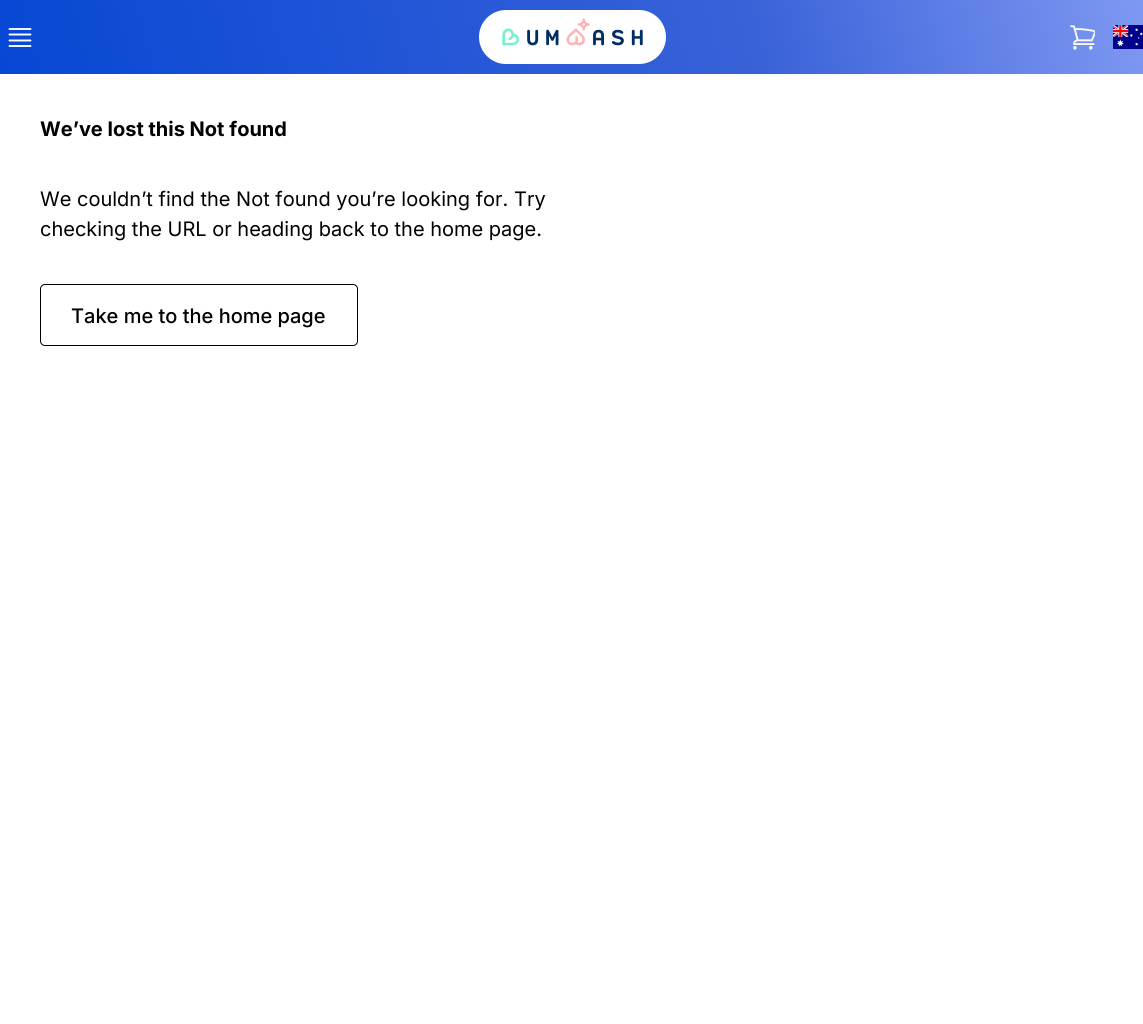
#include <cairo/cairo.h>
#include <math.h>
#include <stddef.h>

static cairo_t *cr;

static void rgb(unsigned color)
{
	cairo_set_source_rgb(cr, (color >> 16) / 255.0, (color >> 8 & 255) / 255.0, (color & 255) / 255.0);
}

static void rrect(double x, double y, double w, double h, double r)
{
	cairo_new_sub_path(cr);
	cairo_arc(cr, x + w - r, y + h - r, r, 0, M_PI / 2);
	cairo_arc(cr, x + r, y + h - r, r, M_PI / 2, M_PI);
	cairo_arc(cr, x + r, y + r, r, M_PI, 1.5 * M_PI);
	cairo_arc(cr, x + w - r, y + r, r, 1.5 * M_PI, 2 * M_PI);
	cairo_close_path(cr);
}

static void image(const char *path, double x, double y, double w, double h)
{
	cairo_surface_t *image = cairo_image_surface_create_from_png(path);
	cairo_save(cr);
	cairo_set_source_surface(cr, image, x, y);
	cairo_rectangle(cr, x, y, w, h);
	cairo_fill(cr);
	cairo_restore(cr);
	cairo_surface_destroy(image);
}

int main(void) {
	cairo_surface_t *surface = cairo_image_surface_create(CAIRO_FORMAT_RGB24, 1143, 1024);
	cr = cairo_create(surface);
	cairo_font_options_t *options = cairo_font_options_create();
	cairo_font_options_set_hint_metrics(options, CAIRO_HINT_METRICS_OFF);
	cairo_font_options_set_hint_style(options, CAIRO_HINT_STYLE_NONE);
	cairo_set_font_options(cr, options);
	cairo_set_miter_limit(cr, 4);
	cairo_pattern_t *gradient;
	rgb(0xffffff);
	cairo_paint(cr);
	gradient = cairo_pattern_create_linear(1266, -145, 19, 182);
	cairo_pattern_add_color_stop_rgba(gradient, 0, 0.608, 0.686, 0.992, 1);
	cairo_pattern_add_color_stop_rgba(gradient, 0.42, 0.224, 0.384, 0.847, 1);
	cairo_pattern_add_color_stop_rgba(gradient, 1, 0.024, 0.278, 0.831, 1);
	cairo_set_source(cr, gradient);
	cairo_pattern_destroy(gradient);
	cairo_rectangle(cr, 0, 0, 1143, 74);
	cairo_fill(cr);
	cairo_new_path(cr);
	cairo_move_to(cr, 9.5, 29);
	cairo_line_to(cr, 30.5, 29);
	cairo_move_to(cr, 9.5, 34.5);
	cairo_line_to(cr, 30.5, 34.5);
	cairo_move_to(cr, 9.5, 40.5);
	cairo_line_to(cr, 30.5, 40.5);
	cairo_move_to(cr, 9.5, 46);
	cairo_line_to(cr, 30.5, 46);
	rgb(0xffffff);
	cairo_set_line_width(cr, 1.9);
	cairo_set_line_cap(cr, CAIRO_LINE_CAP_ROUND);
	cairo_set_line_join(cr, CAIRO_LINE_JOIN_ROUND);
	cairo_stroke(cr);
	rrect(479, 10, 187, 54, 27);
	cairo_fill(cr);
	image("img/1.png", 502, 18, 141, 28);
	image("img/2.png", 1070, 25, 25, 25);
	image("img/3.png", 1113, 25, 30, 24);
	rrect(40.5, 284.5, 317, 61, 4.5);
	rgb(0x000000);
	cairo_set_line_width(cr, 1);
	cairo_set_line_cap(cr, CAIRO_LINE_CAP_BUTT);
	cairo_set_line_join(cr, CAIRO_LINE_JOIN_MITER);
	cairo_stroke(cr);
	cairo_select_font_face(cr, "Inter", CAIRO_FONT_SLANT_NORMAL, CAIRO_FONT_WEIGHT_BOLD);
	cairo_set_font_size(cr, 20);
	cairo_move_to(cr, 40, 136);
	cairo_show_text(cr, "We’ve lost this Not found");
	cairo_select_font_face(cr, "Inter", CAIRO_FONT_SLANT_NORMAL, CAIRO_FONT_WEIGHT_NORMAL);
	cairo_move_to(cr, 40, 206);
	cairo_show_text(cr, "We couldn’t find the Not found you’re looking for. Try");
	cairo_move_to(cr, 40, 236);
	cairo_show_text(cr, "checking the URL or heading back to the home page.");
	cairo_select_font_face(cr, "Inter Medium", CAIRO_FONT_SLANT_NORMAL, CAIRO_FONT_WEIGHT_NORMAL);
	cairo_move_to(cr, 71, 323);
	cairo_show_text(cr, "Take me to the home page");
	cairo_surface_write_to_png(surface, "page.png");
	cairo_font_options_destroy(options);
	cairo_destroy(cr);
	cairo_surface_destroy(surface);
	return 0;
}
